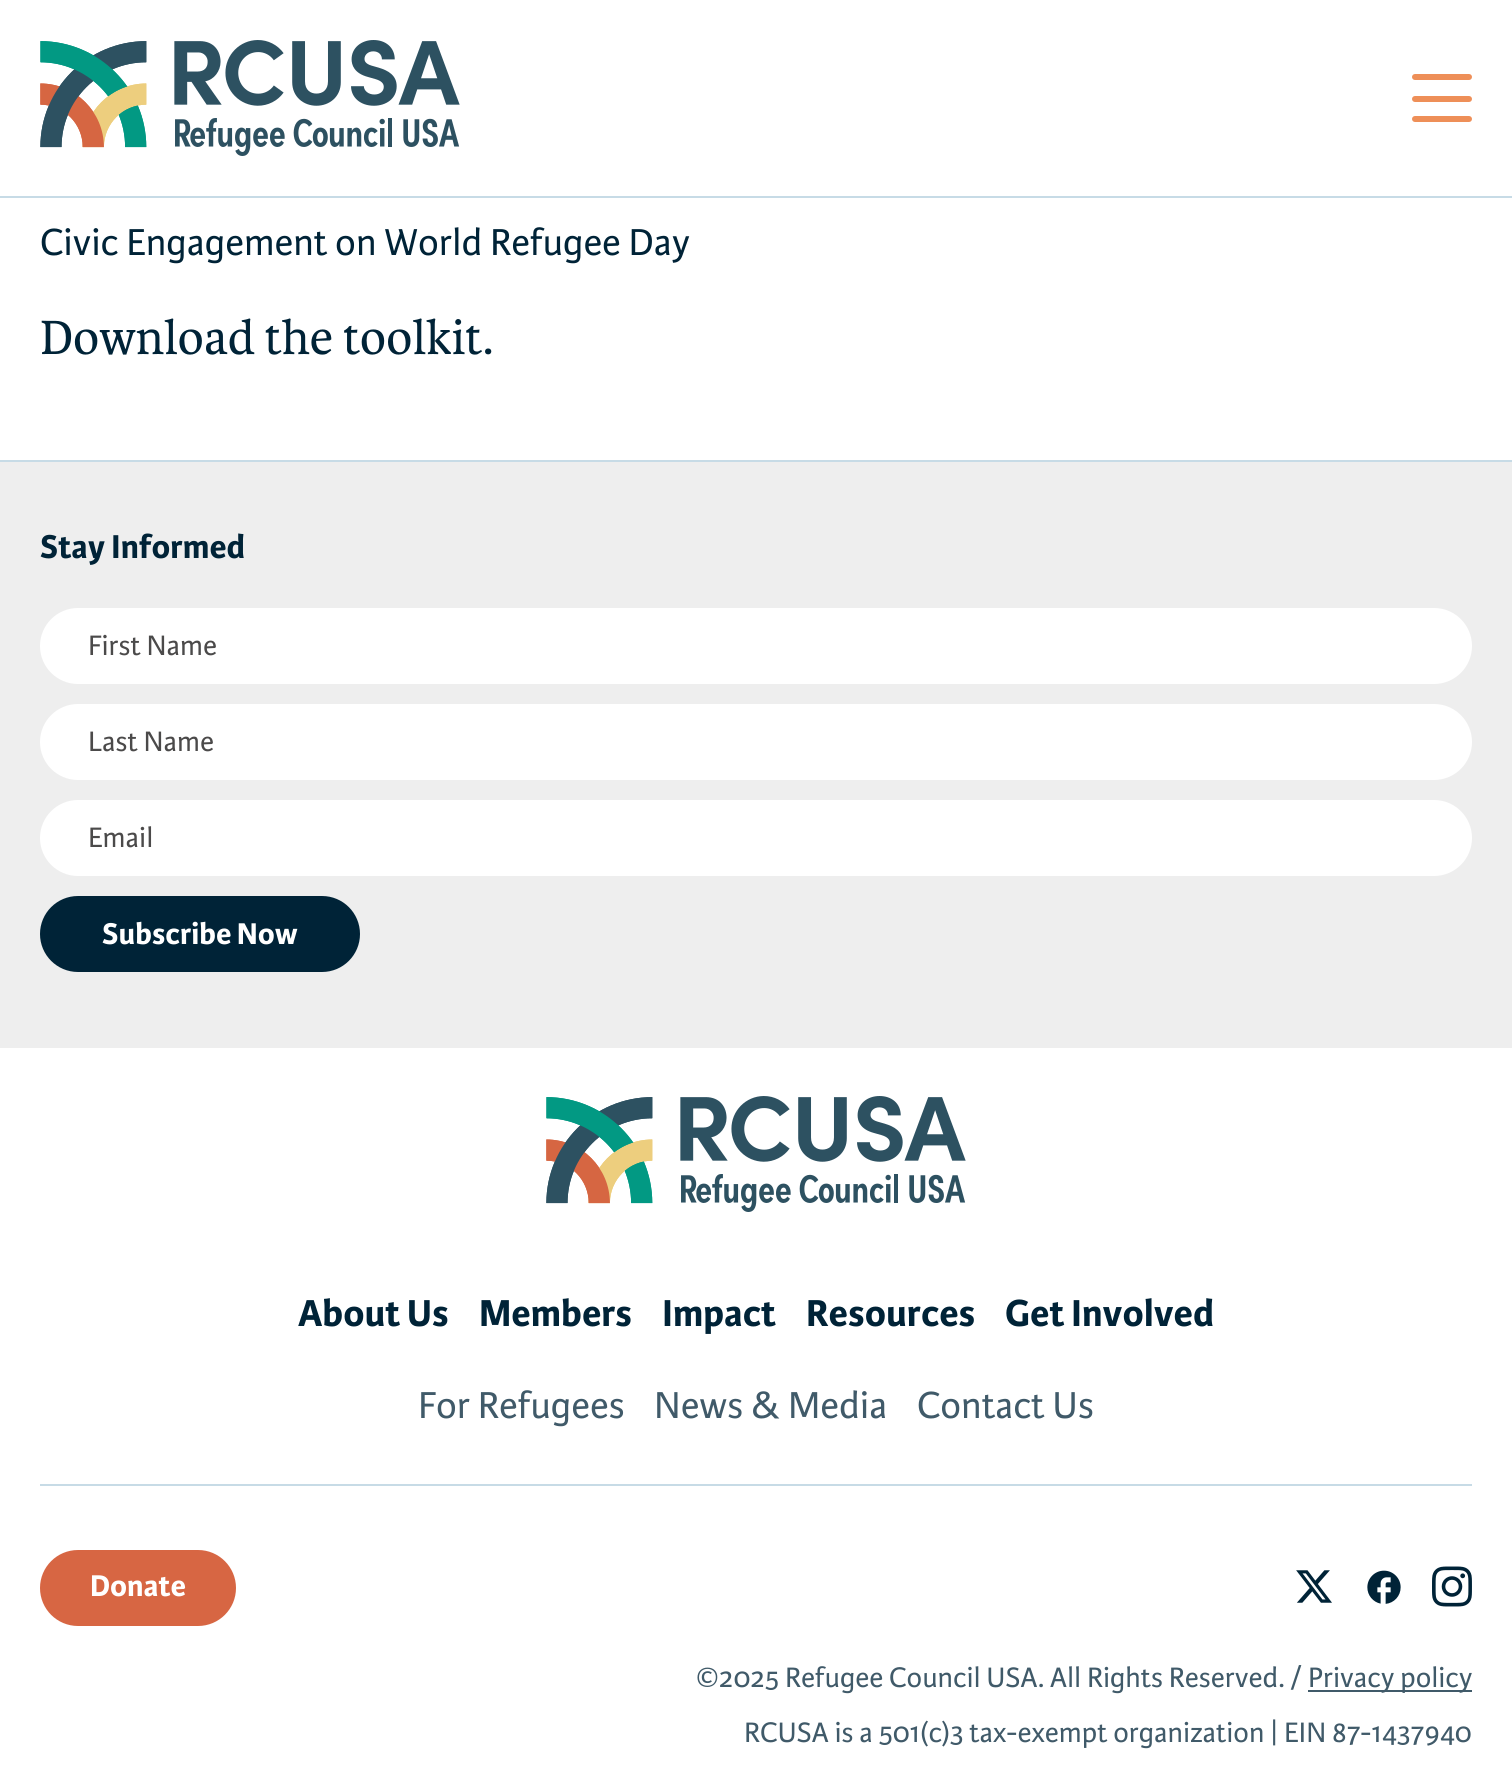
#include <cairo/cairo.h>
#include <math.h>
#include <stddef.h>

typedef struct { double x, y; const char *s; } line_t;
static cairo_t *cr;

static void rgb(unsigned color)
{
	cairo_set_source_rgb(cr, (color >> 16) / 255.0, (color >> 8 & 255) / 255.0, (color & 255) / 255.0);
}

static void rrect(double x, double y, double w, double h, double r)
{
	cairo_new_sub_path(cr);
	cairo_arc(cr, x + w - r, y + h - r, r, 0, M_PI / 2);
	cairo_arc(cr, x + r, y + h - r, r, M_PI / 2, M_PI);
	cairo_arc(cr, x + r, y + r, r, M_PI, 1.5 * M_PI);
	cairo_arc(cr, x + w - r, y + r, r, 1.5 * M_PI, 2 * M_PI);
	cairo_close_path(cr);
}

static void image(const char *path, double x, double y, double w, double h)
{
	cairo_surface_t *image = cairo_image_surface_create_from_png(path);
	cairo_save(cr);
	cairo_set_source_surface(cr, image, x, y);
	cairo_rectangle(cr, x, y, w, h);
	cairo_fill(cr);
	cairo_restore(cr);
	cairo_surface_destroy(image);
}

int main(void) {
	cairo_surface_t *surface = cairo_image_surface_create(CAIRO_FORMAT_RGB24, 1512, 1771);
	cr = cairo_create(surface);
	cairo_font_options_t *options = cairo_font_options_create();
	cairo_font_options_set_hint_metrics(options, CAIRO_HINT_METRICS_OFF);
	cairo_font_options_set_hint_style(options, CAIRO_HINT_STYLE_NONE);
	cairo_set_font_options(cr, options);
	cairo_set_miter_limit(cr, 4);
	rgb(0xffffff);
	cairo_paint(cr);
	rgb(0xc7dbe6);
	cairo_rectangle(cr, 0, 196, 1512, 2);
	cairo_fill(cr);
	image("img/1.png", 40, 40, 420, 116);
	rgb(0xee8f58);
	rrect(1412, 74, 60, 6, 3);
	cairo_fill(cr);
	rrect(1412, 96, 60, 6, 3);
	cairo_fill(cr);
	rrect(1412, 116, 60, 6, 3);
	cairo_fill(cr);
	rgb(0xc7dbe6);
	cairo_rectangle(cr, 0, 460, 1512, 2);
	cairo_fill(cr);
	image("img/2.png", 41, 318, 451, 37);
	rgb(0xeeeeee);
	cairo_rectangle(cr, 0, 462, 1512, 586);
	cairo_fill(cr);
	rgb(0xffffff);
	rrect(40, 608, 1432, 76, 38);
	cairo_fill(cr);
	rrect(40, 704, 1432, 76, 38);
	cairo_fill(cr);
	rrect(40, 800, 1432, 76, 38);
	cairo_fill(cr);
	rgb(0x002337);
	rrect(41, 897, 318, 74, 37);
	cairo_fill_preserve(cr);
	cairo_stroke(cr);
	rgb(0xc7dbe6);
	cairo_rectangle(cr, 40, 1484, 1432, 2);
	cairo_fill(cr);
	image("img/1.png", 546, 1096, 420, 116);
	rgb(0xd76643);
	rrect(41, 1551, 194, 74, 37);
	cairo_fill_preserve(cr);
	cairo_stroke(cr);
	image("img/3.png", 1296, 1570, 36, 33);
	image("img/4.png", 1367, 1570, 34, 34);
	image("img/5.png", 1432, 1566, 40, 41);
	rgb(0x405a69);
	cairo_rectangle(cr, 1308, 1690, 164, 2);
	cairo_fill(cr);
	cairo_select_font_face(cr, "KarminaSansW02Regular", CAIRO_FONT_SLANT_NORMAL, CAIRO_FONT_WEIGHT_NORMAL);
	cairo_set_font_size(cr, 40);
	rgb(0x002337);
	cairo_move_to(cr, 40, 255);
	cairo_show_text(cr, "Civic Engagement on World Refugee Day");
	cairo_select_font_face(cr, "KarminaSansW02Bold", CAIRO_FONT_SLANT_NORMAL, CAIRO_FONT_WEIGHT_BOLD);
	cairo_set_font_size(cr, 35.25);
	cairo_move_to(cr, 40, 558);
	cairo_show_text(cr, "Stay Informed");
	cairo_select_font_face(cr, "KarminaSansW02Regular", CAIRO_FONT_SLANT_NORMAL, CAIRO_FONT_WEIGHT_NORMAL);
	cairo_set_font_size(cr, 30);
	rgb(0x4b4a4a);
	{
		static const line_t items[] = {
			{88, 655, "First Name"},
			{88, 751, "Last Name"},
			{88, 847, "Email"},
		};
		for (size_t i = 0; i < sizeof items / sizeof *items; i++) {
			cairo_move_to(cr, items[i].x, items[i].y);
			cairo_show_text(cr, items[i].s);
		}
	}
	cairo_select_font_face(cr, "KarminaSansW02Bold", CAIRO_FONT_SLANT_NORMAL, CAIRO_FONT_WEIGHT_BOLD);
	cairo_set_font_size(cr, 32);
	rgb(0xffffff);
	cairo_move_to(cr, 102, 944);
	cairo_show_text(cr, "Subscribe Now");
	cairo_set_font_size(cr, 40);
	rgb(0x002337);
	{
		static const line_t items[] = {
			{298, 1326, "About Us"},
			{479, 1326, "Members"},
			{662, 1326, "Impact"},
			{806, 1326, "Resources"},
			{1005, 1326, "Get Involved"},
		};
		for (size_t i = 0; i < sizeof items / sizeof *items; i++) {
			cairo_move_to(cr, items[i].x, items[i].y);
			cairo_show_text(cr, items[i].s);
		}
	}
	cairo_select_font_face(cr, "KarminaSansW02Regular", CAIRO_FONT_SLANT_NORMAL, CAIRO_FONT_WEIGHT_NORMAL);
	rgb(0x405a69);
	{
		static const line_t items[] = {
			{418, 1418, "For Refugees"},
			{654, 1418, "News & Media"},
			{917, 1418, "Contact Us"},
		};
		for (size_t i = 0; i < sizeof items / sizeof *items; i++) {
			cairo_move_to(cr, items[i].x, items[i].y);
			cairo_show_text(cr, items[i].s);
		}
	}
	cairo_select_font_face(cr, "KarminaSansW02Bold", CAIRO_FONT_SLANT_NORMAL, CAIRO_FONT_WEIGHT_BOLD);
	cairo_set_font_size(cr, 32);
	rgb(0xffffff);
	cairo_move_to(cr, 90, 1596);
	cairo_show_text(cr, "Donate");
	cairo_select_font_face(cr, "KarminaSansW02Regular", CAIRO_FONT_SLANT_NORMAL, CAIRO_FONT_WEIGHT_NORMAL);
	cairo_set_font_size(cr, 30);
	rgb(0x405a69);
	{
		static const line_t items[] = {
			{696, 1687, "©2025 Refugee Council USA. All Rights Reserved. /"},
			{1308, 1687, "Privacy policy"},
			{744, 1742, "RCUSA is a 501(c)3 tax-exempt organization | EIN 87-1437940"},
		};
		for (size_t i = 0; i < sizeof items / sizeof *items; i++) {
			cairo_move_to(cr, items[i].x, items[i].y);
			cairo_show_text(cr, items[i].s);
		}
	}
	cairo_surface_write_to_png(surface, "page.png");
	cairo_font_options_destroy(options);
	cairo_destroy(cr);
	cairo_surface_destroy(surface);
	return 0;
}
